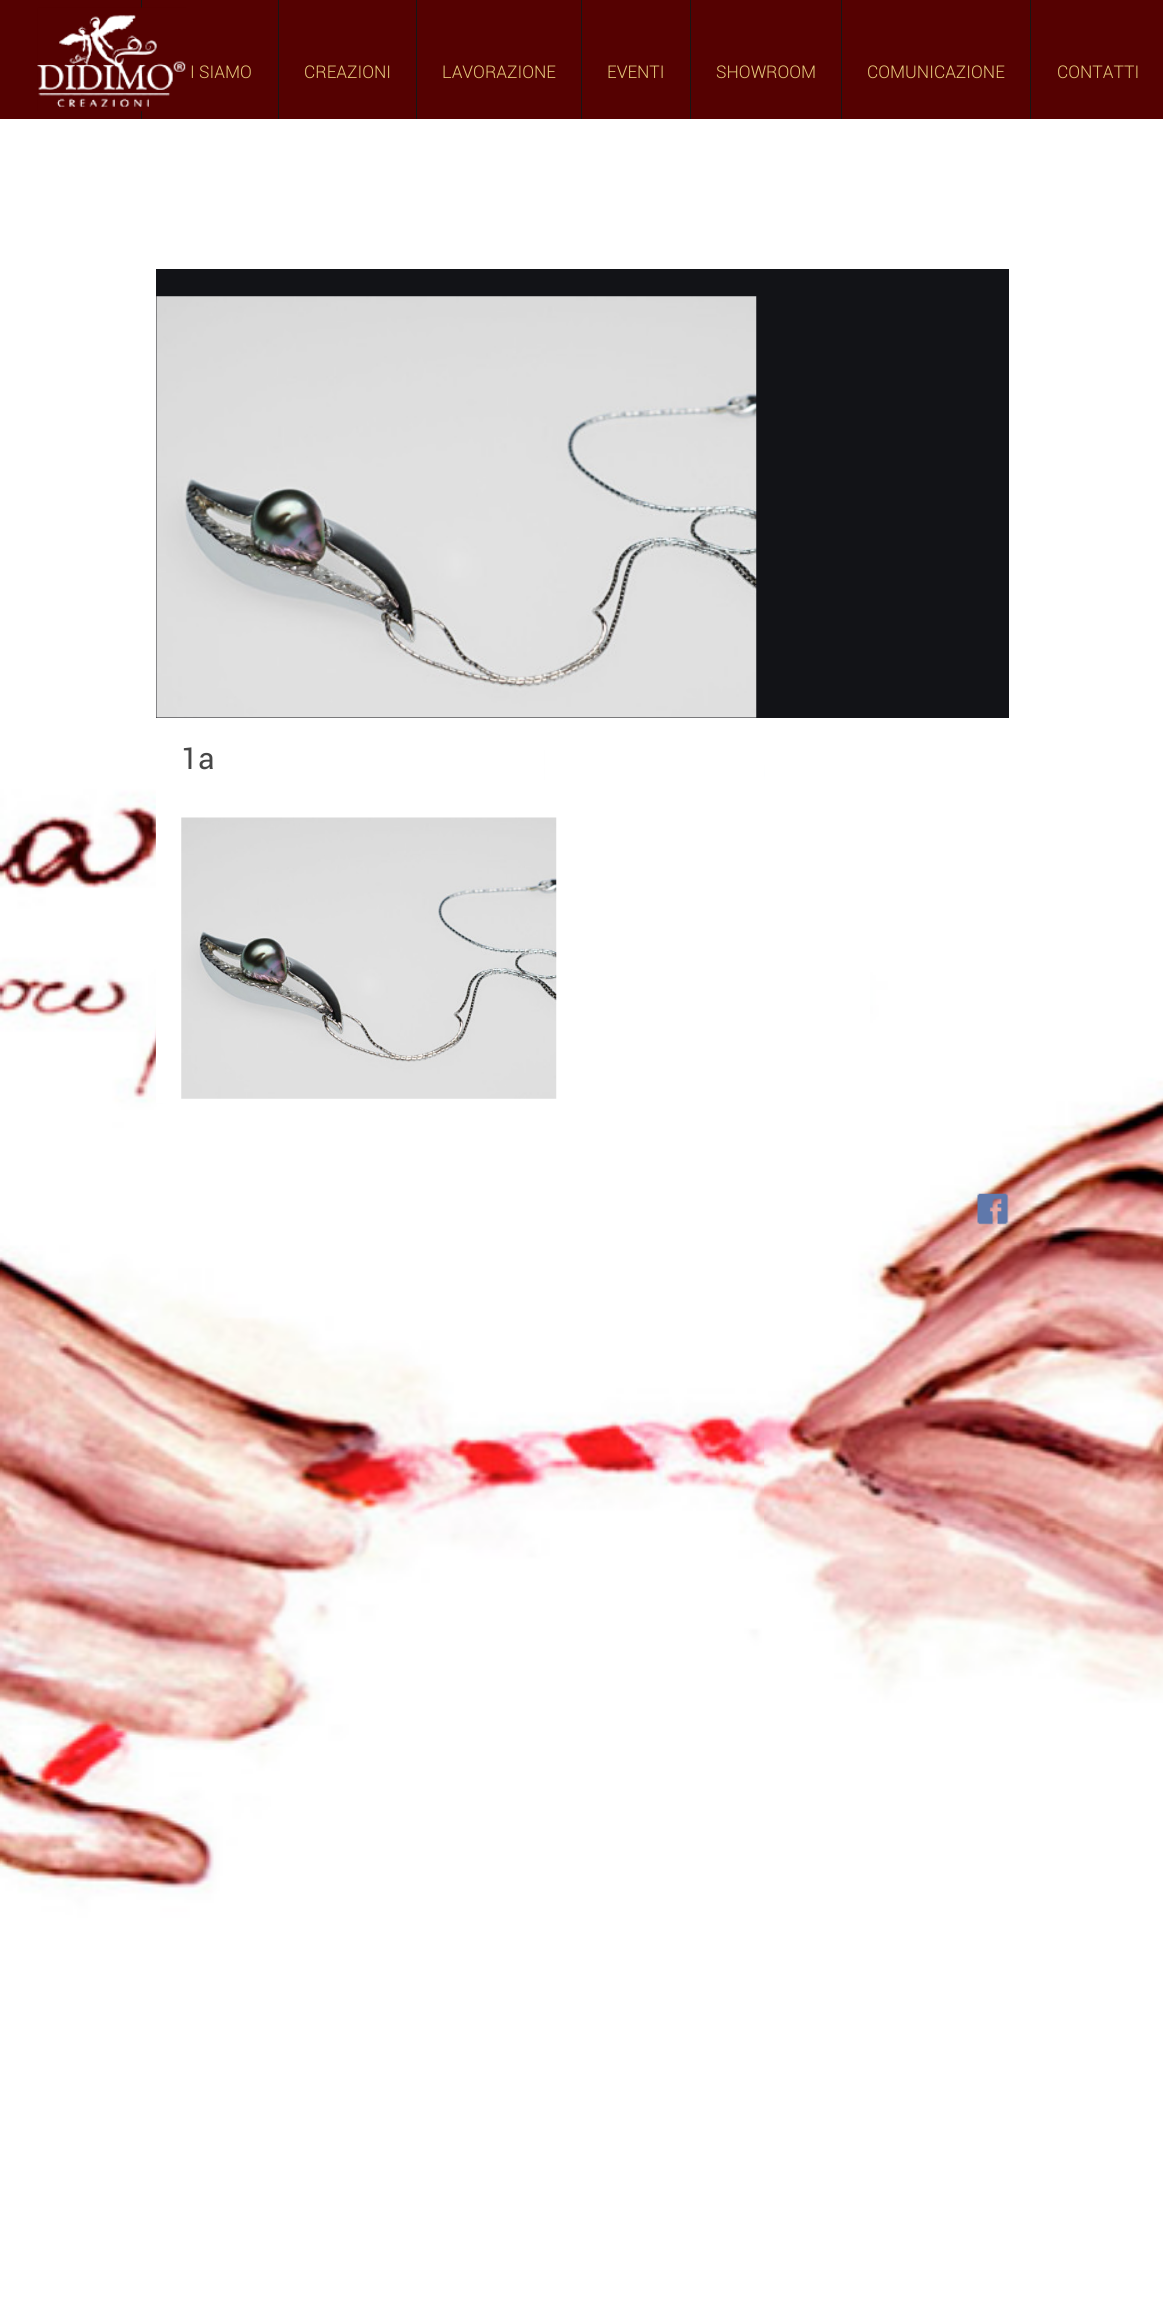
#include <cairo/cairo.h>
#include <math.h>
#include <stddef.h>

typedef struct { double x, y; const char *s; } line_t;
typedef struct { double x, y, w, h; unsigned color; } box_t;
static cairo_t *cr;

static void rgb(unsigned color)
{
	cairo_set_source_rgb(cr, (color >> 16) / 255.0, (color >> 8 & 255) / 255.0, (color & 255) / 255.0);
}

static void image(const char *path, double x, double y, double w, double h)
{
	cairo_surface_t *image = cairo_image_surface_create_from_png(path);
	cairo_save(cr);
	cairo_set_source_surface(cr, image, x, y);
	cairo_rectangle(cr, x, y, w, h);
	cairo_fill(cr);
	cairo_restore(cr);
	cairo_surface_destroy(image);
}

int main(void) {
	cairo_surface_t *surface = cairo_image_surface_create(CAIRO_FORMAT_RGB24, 1163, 2299);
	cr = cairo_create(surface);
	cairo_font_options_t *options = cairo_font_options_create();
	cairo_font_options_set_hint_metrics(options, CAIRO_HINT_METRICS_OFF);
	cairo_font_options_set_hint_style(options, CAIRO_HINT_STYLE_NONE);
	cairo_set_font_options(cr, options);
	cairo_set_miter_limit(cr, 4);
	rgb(0xffffff);
	cairo_paint(cr);
	rgb(0x550101);
	cairo_rectangle(cr, 0, 0, 1163, 119);
	cairo_fill(cr);
	rgb(0x161616);
	cairo_rectangle(cr, 141, 0, 1, 119);
	cairo_fill(cr);
	image("img/1.png", 37, 7, 150, 105);
	{
		static const box_t items[] = {
			{278, 0, 1, 119, 0x161616},
			{416, 0, 1, 119, 0x161616},
			{581, 0, 1, 119, 0x161616},
			{690, 0, 1, 119, 0x161616},
			{841, 0, 1, 119, 0x161616},
			{1030, 0, 1, 119, 0x161616},
		};
		for (size_t i = 0; i < sizeof items / sizeof *items; i++) {
			rgb(items[i].color);
			cairo_rectangle(cr, items[i].x, items[i].y, items[i].w, items[i].h);
			cairo_fill(cr);
		}
	}
	image("img/4.png", 0, 119, 1163, 2180);
	rgb(0x121317);
	cairo_rectangle(cr, 156, 269, 853, 449);
	cairo_fill(cr);
	image("img/2.png", 156, 296, 601, 422);
	rgb(0xffffff);
	cairo_rectangle(cr, 545, 718, 219, 62);
	cairo_fill(cr);
	cairo_rectangle(cr, 156, 780, 714, 323);
	cairo_fill(cr);
	image("img/3.png", 181, 817, 376, 282);
	image("img/5.png", 977, 1193, 32, 32);
	cairo_select_font_face(cr, "Roboto Light", CAIRO_FONT_SLANT_NORMAL, CAIRO_FONT_WEIGHT_NORMAL);
	cairo_set_font_size(cr, 17.5);
	rgb(0xe6c97b);
	{
		static const line_t items[] = {
			{190, 78, "I SIAMO"},
			{304, 78, "CREAZIONI"},
			{442, 78, "LAVORAZIONE"},
			{607, 78, "EVENTI"},
			{716, 78, "SHOWROOM"},
			{867, 78, "COMUNICAZIONE"},
			{1057, 78, "CONTATTI"},
		};
		for (size_t i = 0; i < sizeof items / sizeof *items; i++) {
			cairo_move_to(cr, items[i].x, items[i].y);
			cairo_show_text(cr, items[i].s);
		}
	}
	cairo_select_font_face(cr, "Roboto", CAIRO_FONT_SLANT_NORMAL, CAIRO_FONT_WEIGHT_NORMAL);
	cairo_set_font_size(cr, 30);
	rgb(0x474747);
	cairo_move_to(cr, 181, 769);
	cairo_show_text(cr, "1a");
	cairo_surface_write_to_png(surface, "page.png");
	cairo_font_options_destroy(options);
	cairo_destroy(cr);
	cairo_surface_destroy(surface);
	return 0;
}
